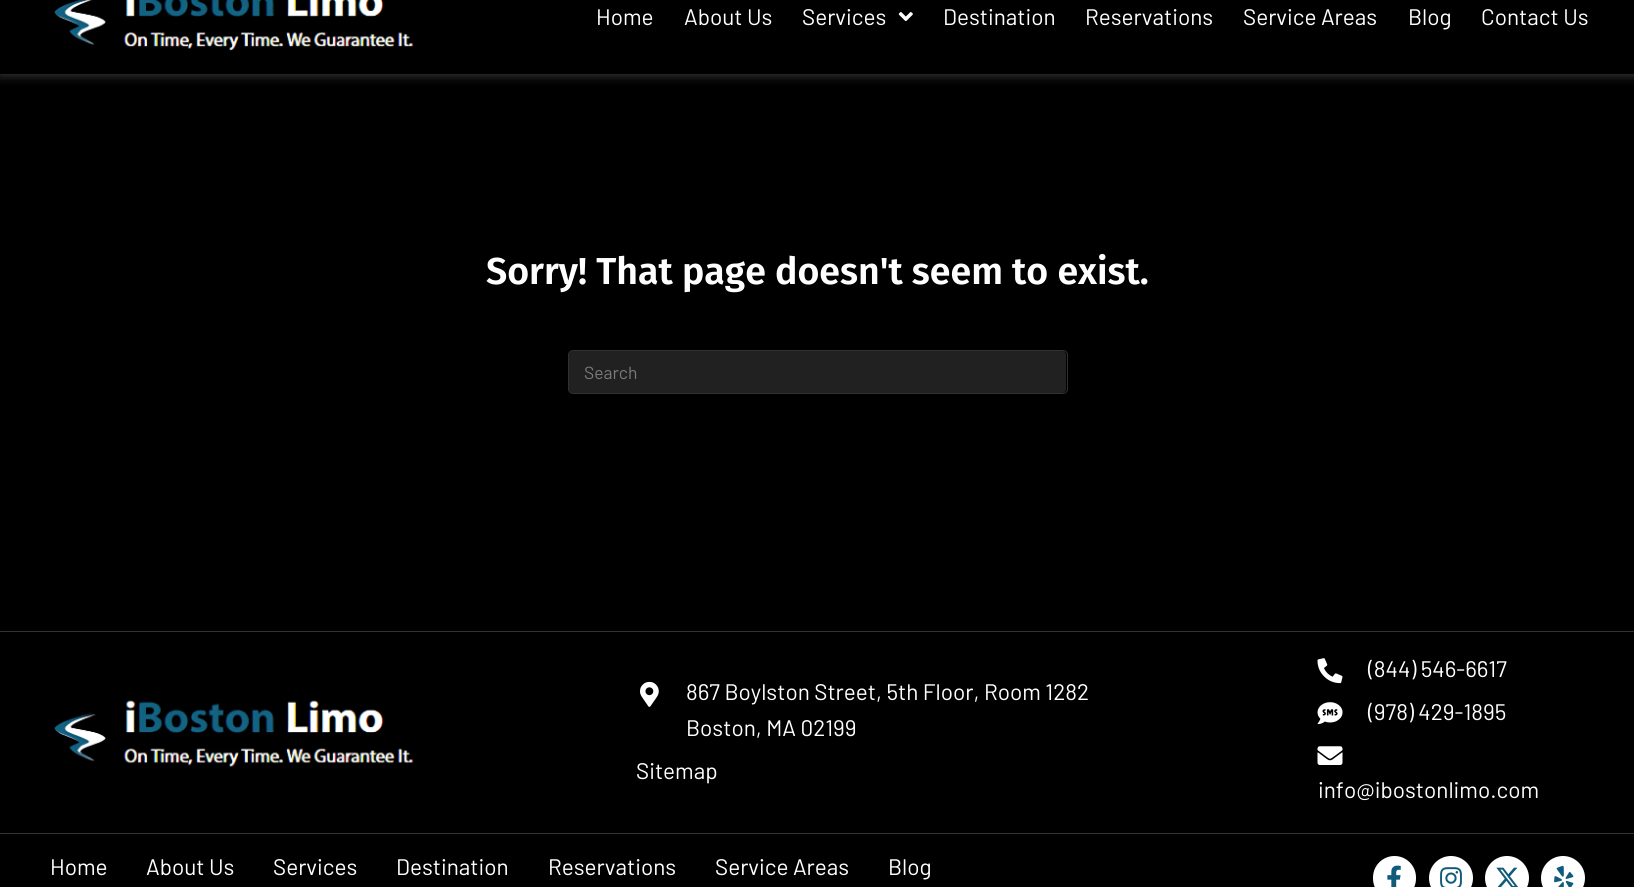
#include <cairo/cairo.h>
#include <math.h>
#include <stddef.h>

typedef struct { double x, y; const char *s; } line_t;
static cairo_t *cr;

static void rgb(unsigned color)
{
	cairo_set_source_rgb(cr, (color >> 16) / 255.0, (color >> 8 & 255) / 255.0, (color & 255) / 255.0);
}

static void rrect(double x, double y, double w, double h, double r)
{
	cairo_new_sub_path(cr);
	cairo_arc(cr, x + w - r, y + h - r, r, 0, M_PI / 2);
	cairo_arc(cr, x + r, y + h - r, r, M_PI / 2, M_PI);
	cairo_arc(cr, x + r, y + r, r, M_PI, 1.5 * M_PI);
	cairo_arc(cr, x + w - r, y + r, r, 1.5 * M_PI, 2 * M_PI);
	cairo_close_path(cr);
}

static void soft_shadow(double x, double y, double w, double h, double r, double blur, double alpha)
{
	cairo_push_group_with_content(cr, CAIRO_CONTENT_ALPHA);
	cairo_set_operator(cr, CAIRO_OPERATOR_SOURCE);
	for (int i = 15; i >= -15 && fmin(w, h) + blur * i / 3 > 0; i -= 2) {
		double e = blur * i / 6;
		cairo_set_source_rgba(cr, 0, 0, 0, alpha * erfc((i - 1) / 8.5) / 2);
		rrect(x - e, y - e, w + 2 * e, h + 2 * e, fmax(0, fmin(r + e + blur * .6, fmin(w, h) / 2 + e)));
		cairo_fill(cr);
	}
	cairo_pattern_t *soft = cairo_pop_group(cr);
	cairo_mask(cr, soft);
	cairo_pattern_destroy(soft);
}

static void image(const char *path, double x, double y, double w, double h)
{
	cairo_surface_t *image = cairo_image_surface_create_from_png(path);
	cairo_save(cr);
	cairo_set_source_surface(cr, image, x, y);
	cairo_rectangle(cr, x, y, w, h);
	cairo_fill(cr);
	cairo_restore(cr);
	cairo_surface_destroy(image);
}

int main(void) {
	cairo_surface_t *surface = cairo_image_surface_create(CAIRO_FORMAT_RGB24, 1634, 887);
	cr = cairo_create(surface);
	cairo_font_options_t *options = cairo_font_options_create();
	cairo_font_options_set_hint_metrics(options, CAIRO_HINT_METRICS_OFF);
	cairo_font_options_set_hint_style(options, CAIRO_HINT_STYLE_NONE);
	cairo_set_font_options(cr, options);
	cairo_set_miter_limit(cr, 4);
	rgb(0x000000);
	cairo_paint(cr);
	cairo_save(cr);
	cairo_set_fill_rule(cr, CAIRO_FILL_RULE_EVEN_ODD);
	cairo_new_path(cr);
	cairo_move_to(cr, 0, 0);
	cairo_line_to(cr, 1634, 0);
	cairo_line_to(cr, 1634, 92);
	cairo_line_to(cr, 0, 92);
	cairo_close_path(cr);
	cairo_move_to(cr, 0, -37);
	cairo_line_to(cr, 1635, -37);
	cairo_line_to(cr, 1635, 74);
	cairo_line_to(cr, 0, 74);
	cairo_close_path(cr);
	cairo_clip(cr);
	rgb(0xffffff);
	soft_shadow(0, -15, 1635, 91, 0, 5, 0.22);
	cairo_restore(cr);
	image("img/1.png", 54, 0, 360, 51);
	image("img/2.png", 898, 12, 15, 10);
	rgb(0x212121);
	rrect(569, 351, 497, 42, 4);
	cairo_fill(cr);
	rrect(568.5, 350.5, 499, 43, 4.5);
	rgb(0x303030);
	cairo_set_line_width(cr, 1);
	cairo_stroke(cr);
	rgb(0x323232);
	cairo_rectangle(cr, 0, 631, 1634, 1);
	cairo_fill(cr);
	image("img/3.png", 54, 700, 360, 68);
	image("img/4.png", 640, 681, 19, 26);
	image("img/5.png", 1317, 658, 26, 26);
	image("img/6.png", 1317, 702, 26, 22);
	image("img/7.png", 1317, 746, 26, 19);
	cairo_rectangle(cr, 0, 833, 1634, 1);
	cairo_fill(cr);
	rgb(0xffffff);
	rrect(1374.5, 857.5, 40, 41, 20);
	cairo_fill_preserve(cr);
	cairo_set_line_width(cr, 3);
	cairo_stroke(cr);
	image("img/8.png", 1387, 865, 14, 22);
	cairo_arc(cr, 1451, 878, 20.5, 0, 2 * M_PI);
	cairo_fill_preserve(cr);
	cairo_stroke(cr);
	image("img/9.png", 1440, 867, 22, 20);
	cairo_arc(cr, 1507, 878, 20.5, 0, 2 * M_PI);
	cairo_fill_preserve(cr);
	cairo_stroke(cr);
	image("img/10.png", 1496, 867, 22, 20);
	cairo_arc(cr, 1563, 878, 20.5, 0, 2 * M_PI);
	cairo_fill_preserve(cr);
	cairo_stroke(cr);
	image("img/11.png", 1554, 865, 20, 22);
	cairo_select_font_face(cr, "Barlow", CAIRO_FONT_SLANT_NORMAL, CAIRO_FONT_WEIGHT_NORMAL);
	cairo_set_font_size(cr, 22.5);
	{
		static const line_t items[] = {
			{596, 25, "Home"},
			{684, 25, "About Us"},
			{802, 25, "Services"},
			{943, 25, "Destination"},
			{1085, 25, "Reservations"},
			{1243, 25, "Service Areas"},
			{1408, 25, "Blog"},
			{1481, 25, "Contact Us"},
		};
		for (size_t i = 0; i < sizeof items / sizeof *items; i++) {
			cairo_move_to(cr, items[i].x, items[i].y);
			cairo_show_text(cr, items[i].s);
		}
	}
	cairo_select_font_face(cr, "Fira Sans SemiBold", CAIRO_FONT_SLANT_NORMAL, CAIRO_FONT_WEIGHT_NORMAL);
	cairo_set_font_size(cr, 37.5);
	cairo_move_to(cr, 486, 284);
	cairo_show_text(cr, "Sorry! That page doesn't seem to exist.");
	cairo_select_font_face(cr, "Barlow", CAIRO_FONT_SLANT_NORMAL, CAIRO_FONT_WEIGHT_NORMAL);
	cairo_set_font_size(cr, 17.5);
	rgb(0x7a7a7a);
	cairo_move_to(cr, 584, 379);
	cairo_show_text(cr, "Search");
	cairo_set_font_size(cr, 22.5);
	rgb(0xffffff);
	{
		static const line_t items[] = {
			{686, 700, "867 Boylston Street, 5th Floor, Room 1282"},
			{686, 736, "Boston, MA 02199"},
			{636, 779, "Sitemap"},
			{1368, 677, "(844) 546-6617"},
			{1368, 720, "(978) 429-1895"},
			{1318, 798, "info@ibostonlimo.com"},
			{50, 875, "Home"},
			{146, 875, "About Us"},
			{273, 875, "Services"},
			{396, 875, "Destination"},
			{548, 875, "Reservations"},
			{715, 875, "Service Areas"},
			{888, 875, "Blog"},
		};
		for (size_t i = 0; i < sizeof items / sizeof *items; i++) {
			cairo_move_to(cr, items[i].x, items[i].y);
			cairo_show_text(cr, items[i].s);
		}
	}
	cairo_surface_write_to_png(surface, "page.png");
	cairo_font_options_destroy(options);
	cairo_destroy(cr);
	cairo_surface_destroy(surface);
	return 0;
}
